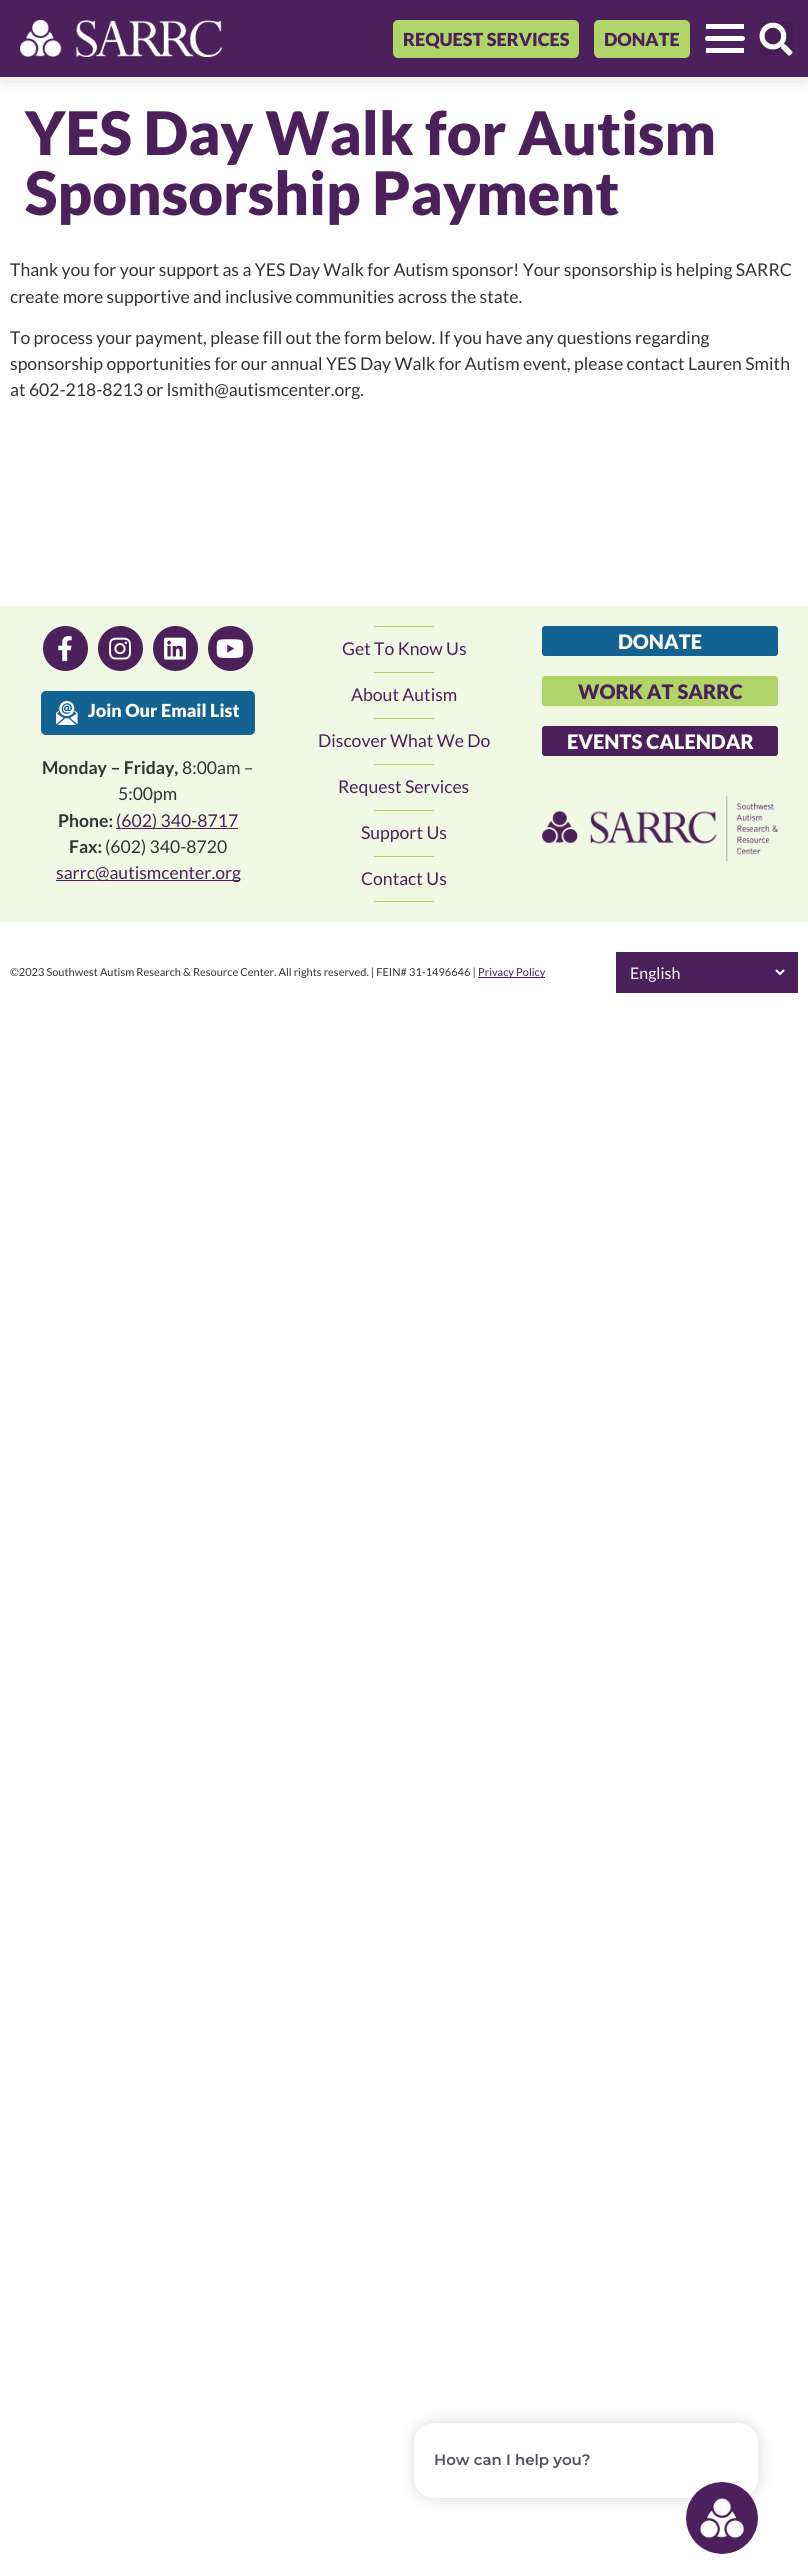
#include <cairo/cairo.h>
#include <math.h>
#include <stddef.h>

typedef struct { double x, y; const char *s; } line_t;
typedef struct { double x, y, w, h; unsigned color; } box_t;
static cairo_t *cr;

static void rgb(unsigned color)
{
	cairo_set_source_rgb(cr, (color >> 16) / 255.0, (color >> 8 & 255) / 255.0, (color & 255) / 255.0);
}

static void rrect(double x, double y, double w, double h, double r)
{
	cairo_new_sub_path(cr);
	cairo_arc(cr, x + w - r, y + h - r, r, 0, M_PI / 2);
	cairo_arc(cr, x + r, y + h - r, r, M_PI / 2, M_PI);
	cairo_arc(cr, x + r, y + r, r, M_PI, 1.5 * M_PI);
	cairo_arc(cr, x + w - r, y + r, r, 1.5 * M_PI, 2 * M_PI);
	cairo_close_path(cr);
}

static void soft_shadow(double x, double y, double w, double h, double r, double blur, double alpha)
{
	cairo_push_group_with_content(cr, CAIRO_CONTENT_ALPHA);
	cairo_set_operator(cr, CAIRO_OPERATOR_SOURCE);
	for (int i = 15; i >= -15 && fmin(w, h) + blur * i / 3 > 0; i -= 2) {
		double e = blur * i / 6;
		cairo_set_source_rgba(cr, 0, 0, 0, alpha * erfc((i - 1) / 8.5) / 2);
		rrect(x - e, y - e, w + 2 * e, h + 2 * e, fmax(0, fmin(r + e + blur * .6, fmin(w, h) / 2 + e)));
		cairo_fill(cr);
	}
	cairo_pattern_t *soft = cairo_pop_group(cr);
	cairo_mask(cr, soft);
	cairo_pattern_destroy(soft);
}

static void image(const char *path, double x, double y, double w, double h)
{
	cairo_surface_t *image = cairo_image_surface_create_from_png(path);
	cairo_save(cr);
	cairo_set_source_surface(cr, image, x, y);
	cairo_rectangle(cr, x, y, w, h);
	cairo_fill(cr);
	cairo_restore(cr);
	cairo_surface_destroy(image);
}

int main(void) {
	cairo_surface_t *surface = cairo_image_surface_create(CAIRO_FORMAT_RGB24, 808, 2568);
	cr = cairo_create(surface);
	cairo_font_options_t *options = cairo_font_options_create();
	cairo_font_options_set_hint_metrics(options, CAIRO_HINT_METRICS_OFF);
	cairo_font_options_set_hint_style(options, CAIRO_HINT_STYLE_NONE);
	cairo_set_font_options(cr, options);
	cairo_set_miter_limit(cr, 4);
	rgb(0xffffff);
	cairo_paint(cr);
	rgb(0x000000);
	soft_shadow(0, 0, 808, 77, 0, 12, 0.15);
	rgb(0x4c205b);
	cairo_rectangle(cr, 0, 0, 808, 77);
	cairo_fill(cr);
	image("img/1.png", 20, 20, 202, 37);
	rgb(0xafd468);
	rrect(393, 20, 186, 38, 5);
	cairo_fill(cr);
	rrect(594, 20, 96, 38, 5);
	cairo_fill(cr);
	rgb(0xffffff);
	rrect(705, 36, 40, 5, 2.5);
	cairo_fill(cr);
	cairo_rectangle(cr, 706, 24, 38, 5);
	cairo_fill(cr);
	cairo_rectangle(cr, 706, 48, 38, 5);
	cairo_fill(cr);
	rgb(0x481e56);
	rrect(760, 22, 33, 33, 3);
	cairo_fill(cr);
	image("img/2.png", 759, 22, 34, 34);
	rgb(0xf0f8e4);
	cairo_rectangle(cr, 0, 606, 808, 316);
	cairo_fill(cr);
	rgb(0x4c205b);
	cairo_arc(cr, 65.5, 648.5, 22.5, 0, 2 * M_PI);
	cairo_fill(cr);
	image("img/3.png", 58, 636, 14, 26);
	cairo_arc(cr, 120.5, 648.5, 22.5, 0, 2 * M_PI);
	cairo_fill(cr);
	image("img/4.png", 109, 637, 22, 23);
	cairo_arc(cr, 175.5, 648.5, 22.5, 0, 2 * M_PI);
	cairo_fill(cr);
	image("img/5.png", 164, 637, 22, 23);
	cairo_arc(cr, 230.5, 648.5, 22.5, 0, 2 * M_PI);
	cairo_fill(cr);
	image("img/6.png", 216, 639, 28, 19);
	rgb(0x136291);
	rrect(41, 691, 214, 44, 5);
	cairo_fill(cr);
	image("img/7.png", 56, 701, 22, 24);
	{
		static const box_t items[] = {
			{116, 828, 122, 1, 0x4c205b},
			{56, 880, 184, 1, 0x4c205b},
			{374, 626, 60, 1, 0xafd468},
			{374, 672, 60, 1, 0xafd468},
			{374, 718, 60, 1, 0xafd468},
			{374, 764, 60, 1, 0xafd468},
			{374, 810, 60, 1, 0xafd468},
			{374, 856, 60, 1, 0xafd468},
			{374, 901, 60, 1, 0xafd468},
		};
		for (size_t i = 0; i < sizeof items / sizeof *items; i++) {
			rgb(items[i].color);
			cairo_rectangle(cr, items[i].x, items[i].y, items[i].w, items[i].h);
			cairo_fill(cr);
		}
	}
	rgb(0x136291);
	rrect(542, 626, 236, 30, 3);
	cairo_fill(cr);
	rgb(0xafd468);
	rrect(542, 676, 236, 30, 3);
	cairo_fill(cr);
	rgb(0x4c205b);
	rrect(542, 726, 236, 30, 3);
	cairo_fill(cr);
	image("img/8.png", 542, 796, 236, 65);
	cairo_rectangle(cr, 478, 977, 67, 1);
	cairo_fill(cr);
	cairo_rectangle(cr, 626, 962, 162, 21);
	cairo_fill(cr);
	cairo_new_path(cr);
	cairo_move_to(cr, 621, 957);
	cairo_line_to(cr, 793, 957);
	cairo_line_to(cr, 793, 988);
	cairo_line_to(cr, 621, 988);
	cairo_close_path(cr);
	cairo_set_line_width(cr, 10);
	cairo_stroke(cr);
	cairo_new_path(cr);
	cairo_move_to(cr, 776, 970);
	cairo_line_to(cr, 780, 974);
	cairo_line_to(cr, 784, 970);
	rgb(0xffffff);
	cairo_set_line_width(cr, 2);
	cairo_stroke(cr);
	rgb(0x000000);
	soft_shadow(414, 2423, 344, 75, 20, 8, 0.15);
	rgb(0xffffff);
	rrect(414, 2423, 344, 75, 20);
	cairo_fill(cr);
	image("img/9.png", 686, 2482, 72, 72);
	cairo_select_font_face(cr, "Lato Black", CAIRO_FONT_SLANT_NORMAL, CAIRO_FONT_WEIGHT_NORMAL);
	cairo_set_font_size(cr, 18);
	rgb(0x4c205b);
	cairo_move_to(cr, 403, 46);
	cairo_show_text(cr, "REQUEST SERVICES");
	cairo_move_to(cr, 604, 46);
	cairo_show_text(cr, "DONATE");
	cairo_set_font_size(cr, 60);
	cairo_move_to(cr, 25, 155);
	cairo_show_text(cr, "YES Day Walk for Autism");
	cairo_move_to(cr, 25, 215);
	cairo_show_text(cr, "Sponsorship Payment");
	cairo_select_font_face(cr, "Lato", CAIRO_FONT_SLANT_NORMAL, CAIRO_FONT_WEIGHT_NORMAL);
	cairo_set_font_size(cr, 17.6);
	rgb(0x333333);
	{
		static const line_t items[] = {
			{10, 276, "Thank you for your support as a YES Day Walk for Autism sponsor! Your sponsorship is helping SARRC"},
			{10, 303, "create more supportive and inclusive communities across the state."},
			{10, 344, "To process your payment, please fill out the form below. If you have any questions regarding"},
			{10, 370, "sponsorship opportunities for our annual YES Day Walk for Autism event, please contact Lauren Smith"},
			{10, 396, "at 602-218-8213 or lsmith@autismcenter.org."},
		};
		for (size_t i = 0; i < sizeof items / sizeof *items; i++) {
			cairo_move_to(cr, items[i].x, items[i].y);
			cairo_show_text(cr, items[i].s);
		}
	}
	cairo_select_font_face(cr, "Lato Black", CAIRO_FONT_SLANT_NORMAL, CAIRO_FONT_WEIGHT_NORMAL);
	cairo_set_font_size(cr, 18);
	rgb(0xffffff);
	cairo_move_to(cr, 88, 717);
	cairo_show_text(cr, "Join Our Email List");
	cairo_select_font_face(cr, "Lato", CAIRO_FONT_SLANT_NORMAL, CAIRO_FONT_WEIGHT_BOLD);
	cairo_set_font_size(cr, 17.6);
	rgb(0x333333);
	cairo_move_to(cr, 42, 774);
	cairo_show_text(cr, "Monday – Friday,");
	cairo_select_font_face(cr, "Lato", CAIRO_FONT_SLANT_NORMAL, CAIRO_FONT_WEIGHT_NORMAL);
	cairo_move_to(cr, 182, 774);
	cairo_show_text(cr, "8:00am –");
	cairo_move_to(cr, 118, 800);
	cairo_show_text(cr, "5:00pm");
	cairo_select_font_face(cr, "Lato", CAIRO_FONT_SLANT_NORMAL, CAIRO_FONT_WEIGHT_BOLD);
	cairo_move_to(cr, 58, 827);
	cairo_show_text(cr, "Phone:");
	cairo_select_font_face(cr, "Lato", CAIRO_FONT_SLANT_NORMAL, CAIRO_FONT_WEIGHT_NORMAL);
	rgb(0x4c205b);
	cairo_move_to(cr, 116, 827);
	cairo_show_text(cr, "(602) 340-8717");
	cairo_select_font_face(cr, "Lato", CAIRO_FONT_SLANT_NORMAL, CAIRO_FONT_WEIGHT_BOLD);
	rgb(0x333333);
	cairo_move_to(cr, 69, 853);
	cairo_show_text(cr, "Fax:");
	cairo_select_font_face(cr, "Lato", CAIRO_FONT_SLANT_NORMAL, CAIRO_FONT_WEIGHT_NORMAL);
	cairo_move_to(cr, 105, 853);
	cairo_show_text(cr, "(602) 340-8720");
	rgb(0x4c205b);
	{
		static const line_t items[] = {
			{56, 879, "sarrc@autismcenter.org"},
			{342, 655, "Get To Know Us"},
			{351, 701, "About Autism"},
			{318, 747, "Discover What We Do"},
			{338, 793, "Request Services"},
			{361, 839, "Support Us"},
			{361, 885, "Contact Us"},
		};
		for (size_t i = 0; i < sizeof items / sizeof *items; i++) {
			cairo_move_to(cr, items[i].x, items[i].y);
			cairo_show_text(cr, items[i].s);
		}
	}
	cairo_select_font_face(cr, "Lato Black", CAIRO_FONT_SLANT_NORMAL, CAIRO_FONT_WEIGHT_NORMAL);
	cairo_set_font_size(cr, 20);
	rgb(0xffffff);
	cairo_move_to(cr, 618, 649);
	cairo_show_text(cr, "DONATE");
	rgb(0x4c205b);
	cairo_move_to(cr, 578, 699);
	cairo_show_text(cr, "WORK AT SARRC");
	rgb(0xffffff);
	cairo_move_to(cr, 567, 749);
	cairo_show_text(cr, "EVENTS CALENDAR");
	cairo_select_font_face(cr, "Lato", CAIRO_FONT_SLANT_NORMAL, CAIRO_FONT_WEIGHT_NORMAL);
	cairo_set_font_size(cr, 11);
	rgb(0x333333);
	cairo_move_to(cr, 10, 976);
	cairo_show_text(cr, "©2023 Southwest Autism Research & Resource Center. All rights reserved. | FEIN# 31-1496646 |");
	rgb(0x4c205b);
	cairo_move_to(cr, 478, 976);
	cairo_show_text(cr, "Privacy Policy");
	cairo_set_font_size(cr, 16);
	rgb(0xffffff);
	cairo_move_to(cr, 630, 979);
	cairo_show_text(cr, "English");
	cairo_select_font_face(cr, "Montserrat SemiBold", CAIRO_FONT_SLANT_NORMAL, CAIRO_FONT_WEIGHT_NORMAL);
	cairo_set_font_size(cr, 15);
	rgb(0x4f525c);
	cairo_move_to(cr, 434, 2465);
	cairo_show_text(cr, "How can I help you?");
	cairo_surface_write_to_png(surface, "page.png");
	cairo_font_options_destroy(options);
	cairo_destroy(cr);
	cairo_surface_destroy(surface);
	return 0;
}
